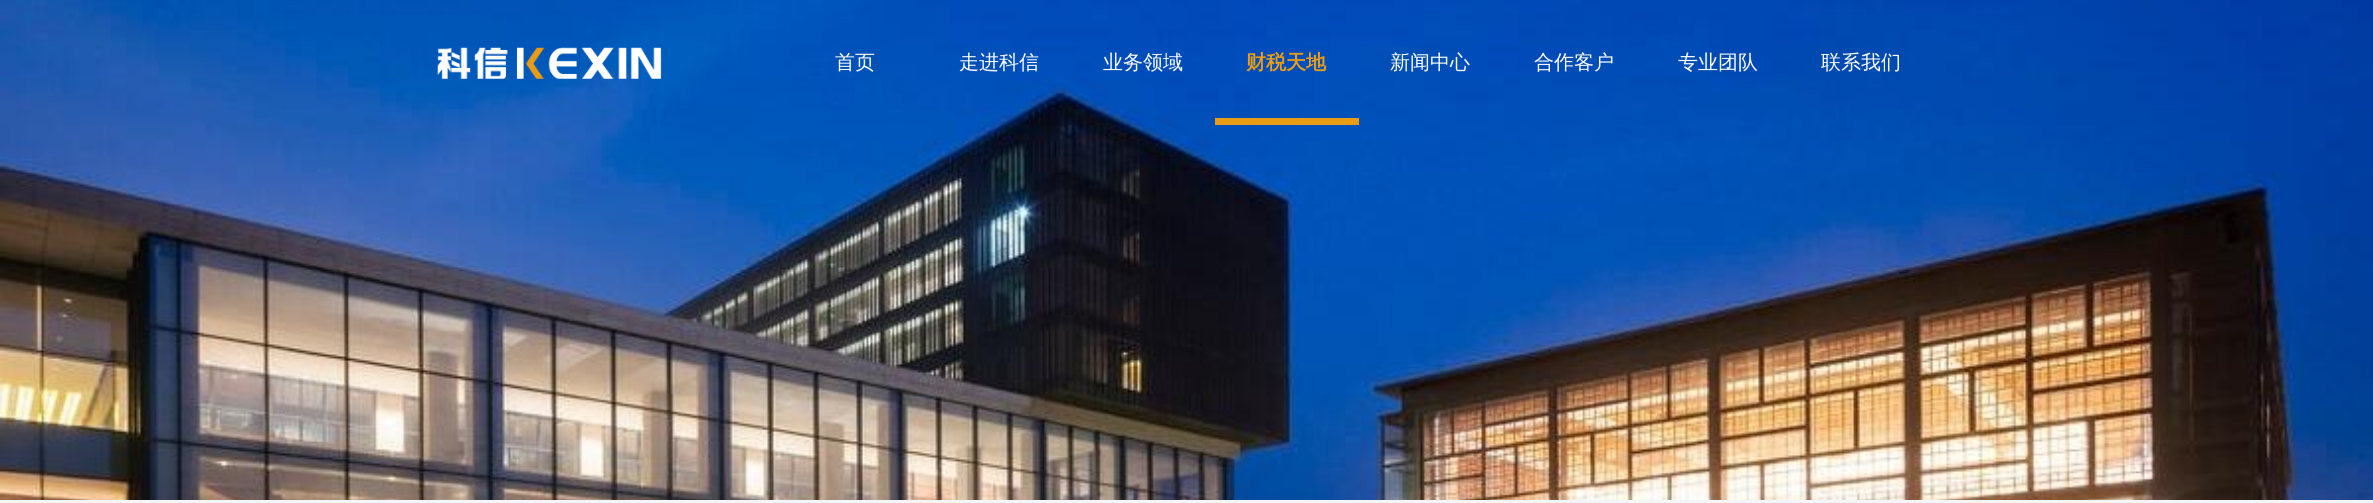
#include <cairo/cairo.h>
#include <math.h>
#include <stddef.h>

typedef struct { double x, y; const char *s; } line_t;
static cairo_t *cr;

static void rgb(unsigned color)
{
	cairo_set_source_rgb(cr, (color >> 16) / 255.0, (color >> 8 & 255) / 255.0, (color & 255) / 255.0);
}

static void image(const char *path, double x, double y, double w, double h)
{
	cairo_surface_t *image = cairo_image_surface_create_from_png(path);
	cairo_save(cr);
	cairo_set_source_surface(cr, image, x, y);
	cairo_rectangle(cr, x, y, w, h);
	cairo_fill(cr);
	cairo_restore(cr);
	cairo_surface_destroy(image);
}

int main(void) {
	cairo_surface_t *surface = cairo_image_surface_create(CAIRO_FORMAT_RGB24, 2373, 503);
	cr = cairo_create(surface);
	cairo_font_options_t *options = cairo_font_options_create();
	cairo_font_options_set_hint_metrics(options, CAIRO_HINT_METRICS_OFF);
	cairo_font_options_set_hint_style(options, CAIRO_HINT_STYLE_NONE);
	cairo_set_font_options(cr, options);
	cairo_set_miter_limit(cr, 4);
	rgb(0xffffff);
	cairo_paint(cr);
	image("img/1.png", 0, 0, 2373, 500);
	image("img/2.png", 437, 47, 225, 32);
	rgb(0xe99d16);
	cairo_rectangle(cr, 1215, 118, 144, 7);
	cairo_fill(cr);
	rgb(0xf3f5f7);
	cairo_rectangle(cr, 0, 500, 2373, 3);
	cairo_fill(cr);
	cairo_select_font_face(cr, "WenQuanYi Zen Hei Medium", CAIRO_FONT_SLANT_NORMAL, CAIRO_FONT_WEIGHT_NORMAL);
	cairo_set_font_size(cr, 20);
	rgb(0xffffff);
	{
		static const line_t items[] = {
			{835, 69, "首页"},
			{959, 69, "走进科信"},
			{1103, 69, "业务领域"},
		};
		for (size_t i = 0; i < sizeof items / sizeof *items; i++) {
			cairo_move_to(cr, items[i].x, items[i].y);
			cairo_show_text(cr, items[i].s);
		}
	}
	cairo_select_font_face(cr, "WenQuanYi Zen Hei", CAIRO_FONT_SLANT_NORMAL, CAIRO_FONT_WEIGHT_BOLD);
	rgb(0xe99d16);
	cairo_move_to(cr, 1246, 69);
	cairo_show_text(cr, "财税天地");
	cairo_select_font_face(cr, "WenQuanYi Zen Hei Medium", CAIRO_FONT_SLANT_NORMAL, CAIRO_FONT_WEIGHT_NORMAL);
	rgb(0xffffff);
	{
		static const line_t items[] = {
			{1390, 69, "新闻中心"},
			{1534, 69, "合作客户"},
			{1678, 69, "专业团队"},
			{1821, 69, "联系我们"},
		};
		for (size_t i = 0; i < sizeof items / sizeof *items; i++) {
			cairo_move_to(cr, items[i].x, items[i].y);
			cairo_show_text(cr, items[i].s);
		}
	}
	cairo_surface_write_to_png(surface, "page.png");
	cairo_font_options_destroy(options);
	cairo_destroy(cr);
	cairo_surface_destroy(surface);
	return 0;
}
